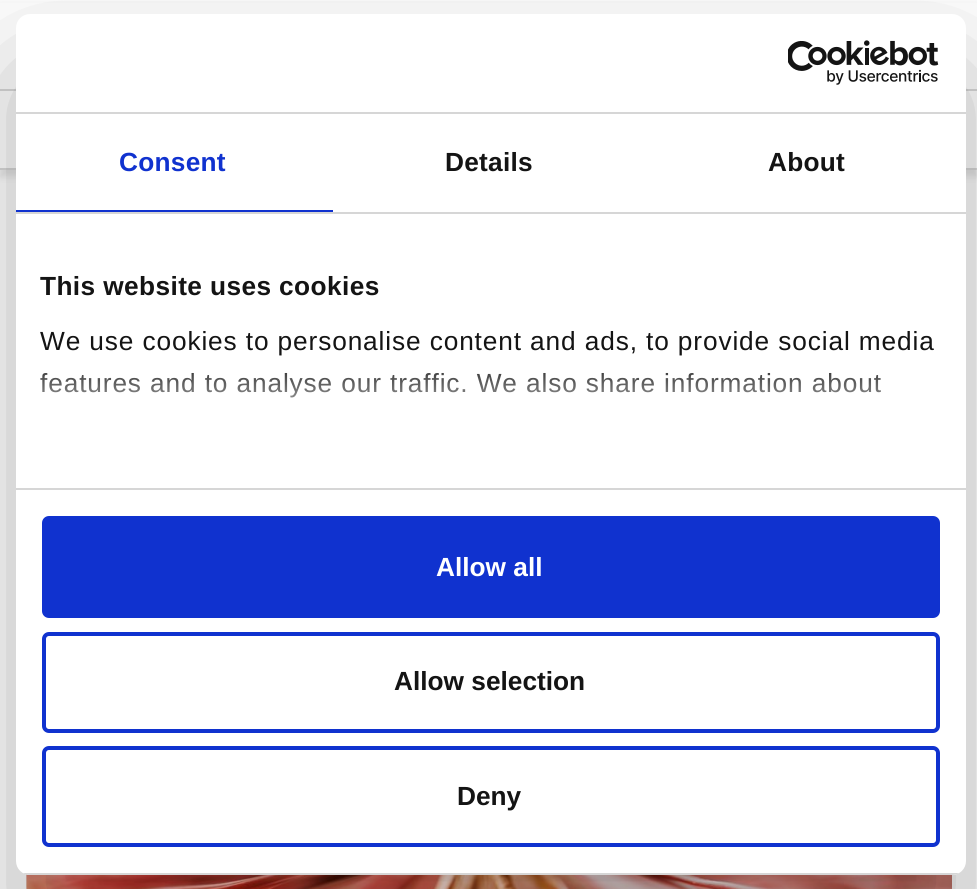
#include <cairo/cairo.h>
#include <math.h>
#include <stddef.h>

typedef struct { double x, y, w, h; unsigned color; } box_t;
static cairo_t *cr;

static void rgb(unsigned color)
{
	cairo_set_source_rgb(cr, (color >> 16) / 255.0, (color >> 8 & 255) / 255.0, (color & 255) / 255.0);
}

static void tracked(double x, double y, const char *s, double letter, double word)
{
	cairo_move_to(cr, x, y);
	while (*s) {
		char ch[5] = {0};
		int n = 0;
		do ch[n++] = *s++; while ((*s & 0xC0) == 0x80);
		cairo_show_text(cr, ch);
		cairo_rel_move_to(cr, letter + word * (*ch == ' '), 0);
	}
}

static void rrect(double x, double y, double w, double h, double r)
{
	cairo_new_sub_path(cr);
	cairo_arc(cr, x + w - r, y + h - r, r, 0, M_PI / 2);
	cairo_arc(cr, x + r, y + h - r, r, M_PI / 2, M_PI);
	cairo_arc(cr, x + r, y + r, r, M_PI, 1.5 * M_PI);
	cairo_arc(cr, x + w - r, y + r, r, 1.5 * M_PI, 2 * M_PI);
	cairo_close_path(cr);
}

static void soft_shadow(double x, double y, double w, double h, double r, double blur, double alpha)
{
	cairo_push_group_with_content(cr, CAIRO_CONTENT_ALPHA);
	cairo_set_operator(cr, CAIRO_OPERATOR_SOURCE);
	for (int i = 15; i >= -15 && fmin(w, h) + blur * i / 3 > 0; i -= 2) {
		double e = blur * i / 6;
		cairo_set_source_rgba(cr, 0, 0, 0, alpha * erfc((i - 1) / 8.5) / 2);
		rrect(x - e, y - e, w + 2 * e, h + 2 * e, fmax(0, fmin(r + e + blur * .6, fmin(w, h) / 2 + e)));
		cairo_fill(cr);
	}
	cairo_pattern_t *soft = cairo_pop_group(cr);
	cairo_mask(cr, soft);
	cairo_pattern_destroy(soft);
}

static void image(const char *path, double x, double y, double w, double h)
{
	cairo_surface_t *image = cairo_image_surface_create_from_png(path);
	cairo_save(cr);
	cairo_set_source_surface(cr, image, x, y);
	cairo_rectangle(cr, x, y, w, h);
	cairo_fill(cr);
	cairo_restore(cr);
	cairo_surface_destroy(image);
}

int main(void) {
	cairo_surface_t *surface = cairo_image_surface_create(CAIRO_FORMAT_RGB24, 977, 889);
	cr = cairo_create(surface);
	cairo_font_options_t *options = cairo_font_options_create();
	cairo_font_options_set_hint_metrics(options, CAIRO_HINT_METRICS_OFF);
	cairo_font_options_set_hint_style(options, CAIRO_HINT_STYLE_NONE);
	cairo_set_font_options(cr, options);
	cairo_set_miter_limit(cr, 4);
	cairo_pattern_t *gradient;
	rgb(0xffffff);
	cairo_paint(cr);
	rgb(0x000000);
	soft_shadow(0, 7, 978, 170, 0, 3.5, 0.1);
	{
		static const box_t items[] = {
			{0, 3, 977, 165, 0xffffff},
			{0, 89, 977, 2, 0xd9d9d9},
			{0, 168, 977, 2, 0xd9d9d9},
			{26, 874, 1, 15, 0xf5f5f5},
		};
		for (size_t i = 0; i < sizeof items / sizeof *items; i++) {
			rgb(items[i].color);
			cairo_rectangle(cr, items[i].x, items[i].y, items[i].w, items[i].h);
			cairo_fill(cr);
		}
	}
	image("img/2.png", 26, 874, 926, 15);
	rgb(0x000000);
	soft_shadow(16, 70, 950, 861, 14, 59.5, 0.3);
	rgb(0xffffff);
	rrect(16, 14, 950, 861, 14);
	cairo_fill(cr);
	rgb(0xd6d6d6);
	cairo_rectangle(cr, 16, 112, 950, 2);
	cairo_fill(cr);
	image("img/1.png", 788, 40, 151, 45);
	{
		static const box_t items[] = {
			{16, 212, 950, 2, 0xd6d6d6},
			{16, 210, 317, 2, 0x1032cf},
			{16, 488, 950, 2, 0xd6d6d6},
		};
		for (size_t i = 0; i < sizeof items / sizeof *items; i++) {
			rgb(items[i].color);
			cairo_rectangle(cr, items[i].x, items[i].y, items[i].w, items[i].h);
			cairo_fill(cr);
		}
	}
	cairo_save(cr);
	rrect(16, 14, 950, 861, 14);
	cairo_clip(cr);
	cairo_rectangle(cr, 16, 873, 950, 2);
	cairo_fill(cr);
	cairo_restore(cr);
	rgb(0x1032cf);
	rrect(44, 518, 894, 98, 5);
	cairo_fill_preserve(cr);
	cairo_set_line_width(cr, 4);
	cairo_stroke(cr);
	rrect(44, 634, 894, 97, 5);
	cairo_stroke(cr);
	rrect(44, 748, 894, 97, 5);
	cairo_stroke(cr);
	cairo_select_font_face(cr, "Liberation Sans", CAIRO_FONT_SLANT_NORMAL, CAIRO_FONT_WEIGHT_BOLD);
	cairo_set_font_size(cr, 26.25);
	tracked(119, 171, "Consent", 0.25, 0);
	rgb(0x141414);
	tracked(445, 171, "Details", 0.25, 0);
	tracked(768, 171, "About", 0.25, 0);
	tracked(40, 295, "This website uses cookies", 0.4, 0);
	cairo_select_font_face(cr, "Liberation Sans", CAIRO_FONT_SLANT_NORMAL, CAIRO_FONT_WEIGHT_NORMAL);
	tracked(40, 350, "We use cookies to personalise content and ads, to provide social media", 0.88, 0);
	tracked(40, 392, "features and to analyse our traffic. We also share information about", 0.88, 0);
	gradient = cairo_pattern_create_linear(479, 488, 479, 357);
	cairo_pattern_add_color_stop_rgba(gradient, 0, 1, 1, 1, 1);
	cairo_pattern_add_color_stop_rgba(gradient, 0.5, 1, 1, 1, 0.8);
	cairo_pattern_add_color_stop_rgba(gradient, 1, 1, 1, 1, 0);
	cairo_set_source(cr, gradient);
	cairo_pattern_destroy(gradient);
	cairo_rectangle(cr, 40, 373, 841, 25);
	cairo_fill(cr);
	cairo_select_font_face(cr, "Liberation Sans", CAIRO_FONT_SLANT_NORMAL, CAIRO_FONT_WEIGHT_BOLD);
	rgb(0xffffff);
	cairo_move_to(cr, 436, 576);
	cairo_show_text(cr, "Allow all");
	rgb(0x141414);
	cairo_move_to(cr, 394, 690);
	cairo_show_text(cr, "Allow selection");
	cairo_move_to(cr, 457, 805);
	cairo_show_text(cr, "Deny");
	cairo_surface_write_to_png(surface, "page.png");
	cairo_font_options_destroy(options);
	cairo_destroy(cr);
	cairo_surface_destroy(surface);
	return 0;
}
